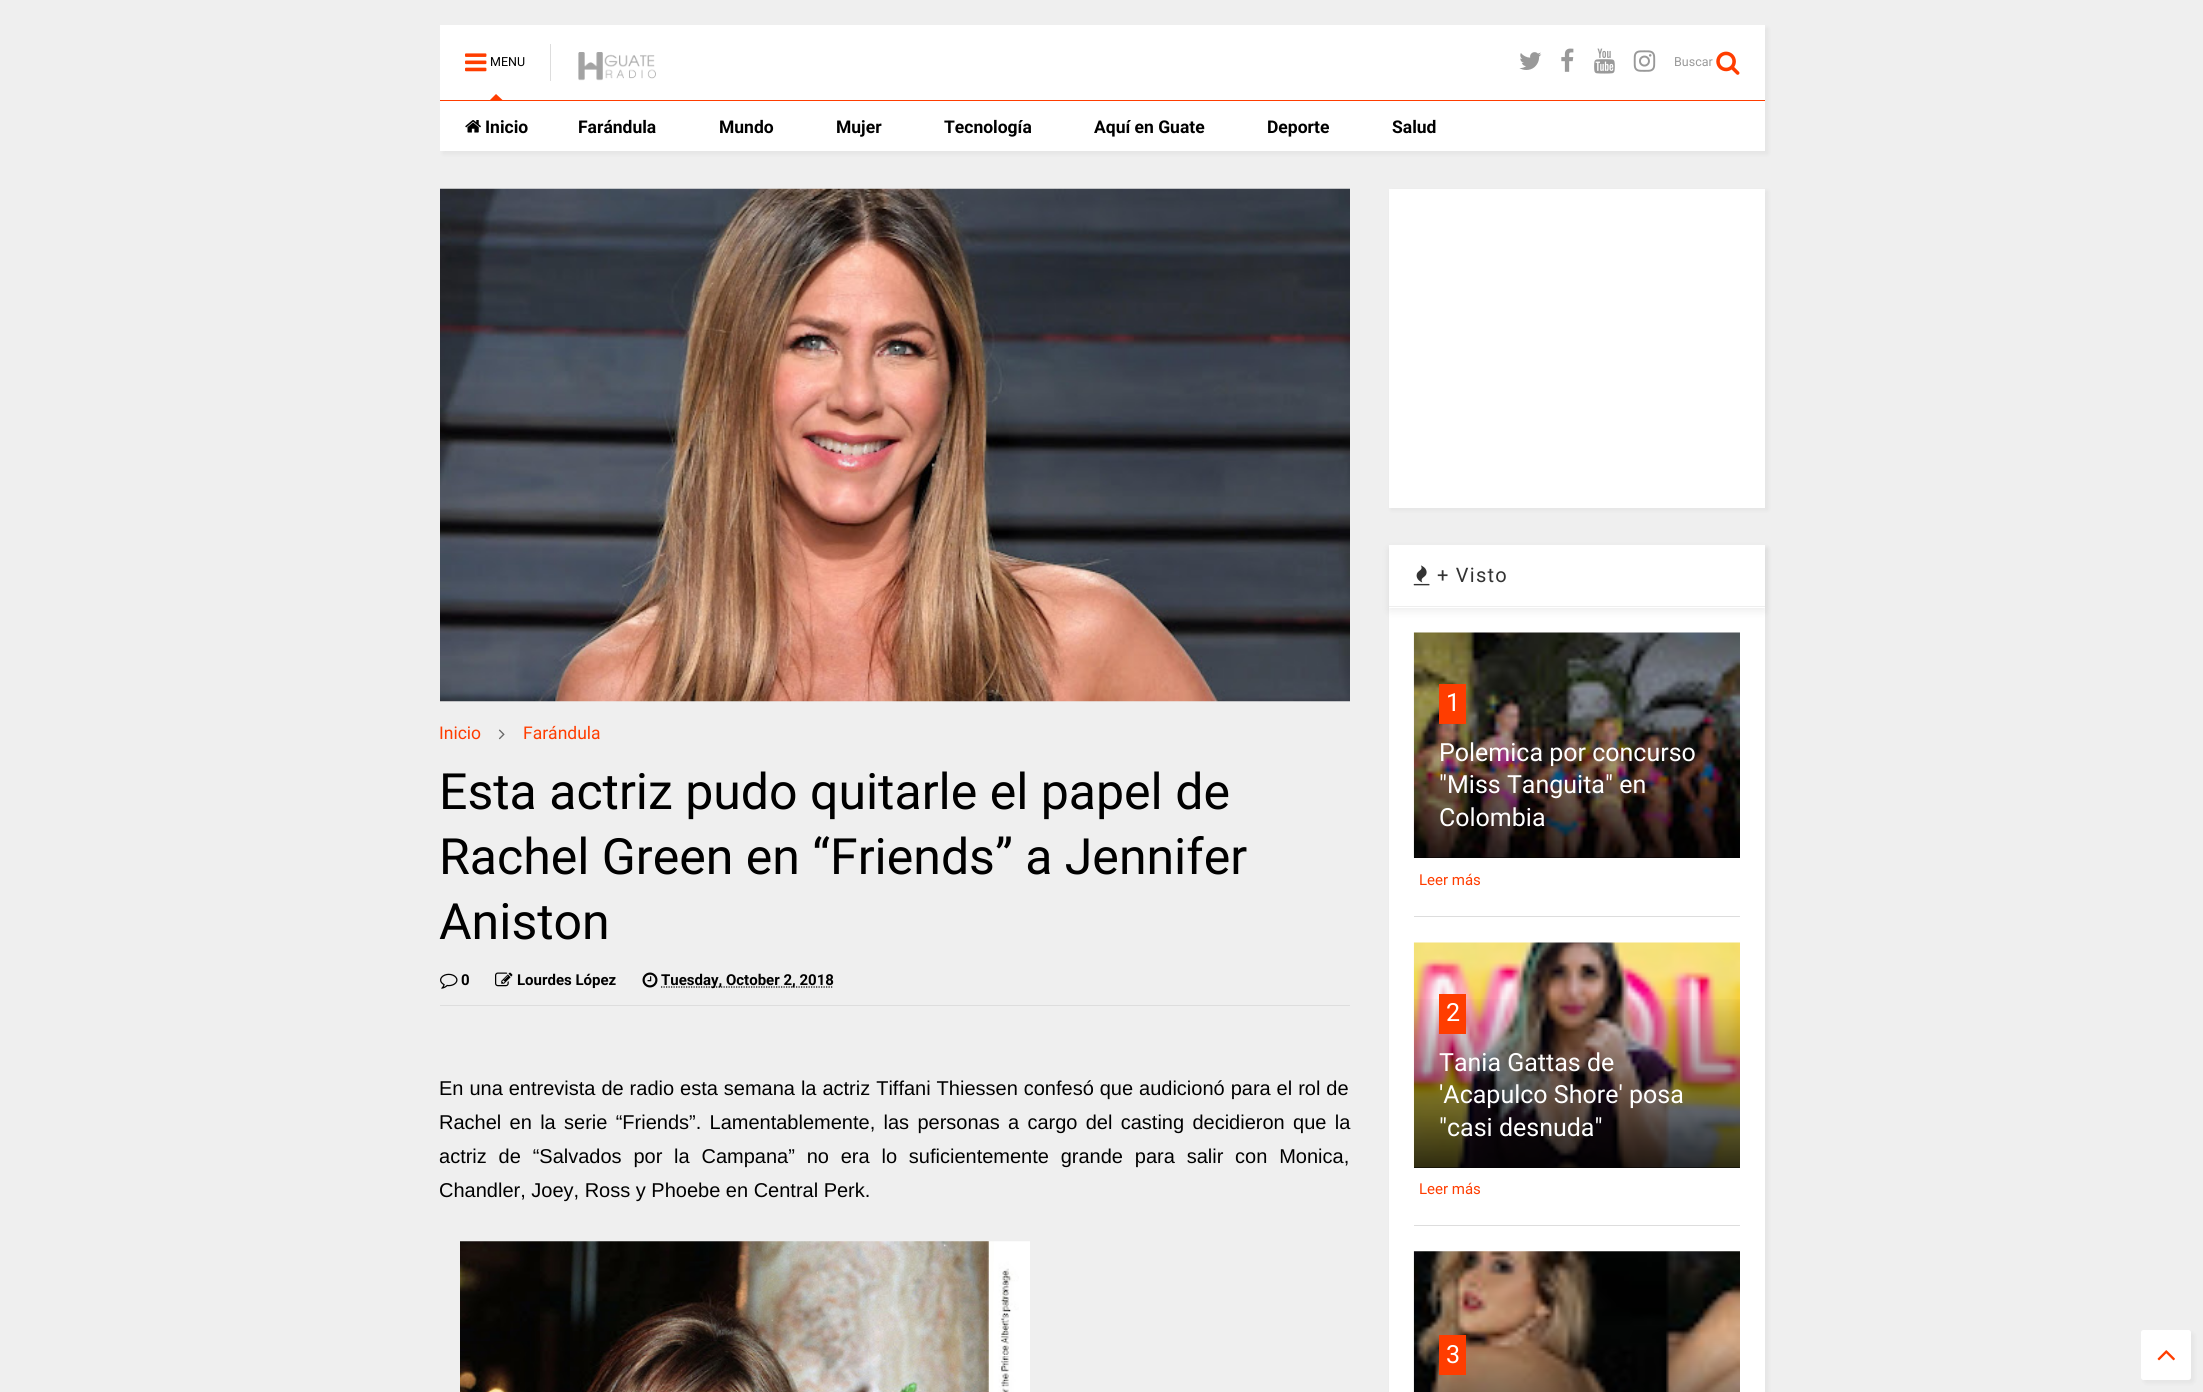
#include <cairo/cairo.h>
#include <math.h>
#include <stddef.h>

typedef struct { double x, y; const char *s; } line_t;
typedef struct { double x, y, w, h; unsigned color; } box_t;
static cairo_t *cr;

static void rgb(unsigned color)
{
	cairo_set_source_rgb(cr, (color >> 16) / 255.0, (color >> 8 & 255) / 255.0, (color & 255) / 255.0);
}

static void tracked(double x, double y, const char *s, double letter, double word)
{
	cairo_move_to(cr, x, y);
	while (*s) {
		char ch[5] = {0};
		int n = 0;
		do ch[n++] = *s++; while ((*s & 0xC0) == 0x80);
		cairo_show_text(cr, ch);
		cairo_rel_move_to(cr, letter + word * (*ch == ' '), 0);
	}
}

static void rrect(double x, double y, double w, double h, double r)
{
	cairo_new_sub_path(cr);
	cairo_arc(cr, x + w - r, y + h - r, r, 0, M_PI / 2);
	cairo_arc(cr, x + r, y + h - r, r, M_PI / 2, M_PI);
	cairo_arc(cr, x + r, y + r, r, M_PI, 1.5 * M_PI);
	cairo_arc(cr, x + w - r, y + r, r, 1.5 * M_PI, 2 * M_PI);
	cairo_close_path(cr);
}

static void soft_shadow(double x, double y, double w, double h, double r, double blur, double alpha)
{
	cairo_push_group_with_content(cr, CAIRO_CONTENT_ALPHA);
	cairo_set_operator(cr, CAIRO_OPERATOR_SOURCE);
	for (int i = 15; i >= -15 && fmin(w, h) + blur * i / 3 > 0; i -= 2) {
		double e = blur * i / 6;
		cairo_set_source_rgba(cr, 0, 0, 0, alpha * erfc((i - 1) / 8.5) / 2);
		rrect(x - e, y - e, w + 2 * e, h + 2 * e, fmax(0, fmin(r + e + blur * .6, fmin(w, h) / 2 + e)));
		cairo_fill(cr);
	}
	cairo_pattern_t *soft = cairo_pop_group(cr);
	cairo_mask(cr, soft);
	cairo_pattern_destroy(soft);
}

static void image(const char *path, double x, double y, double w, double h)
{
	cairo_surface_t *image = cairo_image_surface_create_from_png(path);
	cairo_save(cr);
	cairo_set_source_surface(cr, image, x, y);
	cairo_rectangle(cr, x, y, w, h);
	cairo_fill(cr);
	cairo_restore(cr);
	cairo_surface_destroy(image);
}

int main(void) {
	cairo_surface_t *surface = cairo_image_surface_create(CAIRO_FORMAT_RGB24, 2203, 1392);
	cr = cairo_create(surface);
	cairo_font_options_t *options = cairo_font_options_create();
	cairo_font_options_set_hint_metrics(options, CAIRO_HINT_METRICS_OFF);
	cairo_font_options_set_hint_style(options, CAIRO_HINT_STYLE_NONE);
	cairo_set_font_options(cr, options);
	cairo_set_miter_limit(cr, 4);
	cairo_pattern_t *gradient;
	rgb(0xefefef);
	cairo_paint(cr);
	rgb(0x000000);
	soft_shadow(443, 28, 1325, 126, 0, 2, 0.05);
	rgb(0xffffff);
	cairo_rectangle(cr, 440, 25, 1325, 126);
	cairo_fill(cr);
	image("img/1.png", 465, 53, 22, 19);
	rgb(0xff3d00);
	cairo_new_path(cr);
	cairo_move_to(cr, 502.5, 100);
	cairo_line_to(cr, 490, 100);
	cairo_line_to(cr, 496, 94);
	cairo_close_path(cr);
	cairo_fill(cr);
	rgb(0xdddddd);
	cairo_rectangle(cr, 550, 44, 1, 37);
	cairo_fill(cr);
	image("img/2.png", 578, 52, 78, 29);
	image("img/3.png", 1519, 52, 23, 18);
	image("img/4.png", 1561, 48, 13, 24);
	image("img/5.png", 1594, 48, 21, 26);
	image("img/6.png", 1633, 50, 23, 22);
	image("img/7.png", 1716, 51, 24, 24);
	rgb(0xff3d00);
	cairo_rectangle(cr, 440, 100, 1325, 1);
	cairo_fill(cr);
	image("img/8.png", 465, 120, 16, 13);
	image("img/9.png", 440, 188, 910, 514);
	image("img/10.png", 498, 729, 7, 11);
	rgb(0xdddddd);
	cairo_rectangle(cr, 440, 1005, 910, 1);
	cairo_fill(cr);
	image("img/11.png", 440, 973, 18, 16);
	image("img/12.png", 495, 972, 18, 15);
	image("img/13.png", 642, 972, 16, 16);
	cairo_new_path(cr);
	cairo_move_to(cr, 661, 987);
	cairo_line_to(cr, 833.5, 987);
	rgb(0x000000);
	cairo_set_line_width(cr, 1.2);
	cairo_set_dash(cr, (double[]){1.25, 1.25}, 2, 0);
	cairo_stroke(cr);
	image("img/14.png", 460, 1241, 570, 151);
	rgb(0x000000);
	soft_shadow(1391, 191, 377, 319, 0, 2, 0.05);
	rgb(0xffffff);
	cairo_rectangle(cr, 1389, 189, 376, 319);
	cairo_fill(cr);
	rgb(0x000000);
	soft_shadow(1391, 548, 377, 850, 0, 2, 0.05);
	rgb(0xffffff);
	cairo_rectangle(cr, 1389, 545, 376, 847);
	cairo_fill(cr);
	cairo_save(cr);
	cairo_set_fill_rule(cr, CAIRO_FILL_RULE_EVEN_ODD);
	cairo_new_path(cr);
	cairo_move_to(cr, 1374, 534);
	cairo_line_to(cr, 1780, 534);
	cairo_line_to(cr, 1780, 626);
	cairo_line_to(cr, 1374, 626);
	cairo_close_path(cr);
	cairo_move_to(cr, 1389, 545);
	cairo_line_to(cr, 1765, 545);
	cairo_line_to(cr, 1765, 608);
	cairo_line_to(cr, 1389, 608);
	cairo_close_path(cr);
	cairo_clip(cr);
	rgb(0x000000);
	soft_shadow(1389, 549, 376, 62, 0, 4.5, 0.07);
	cairo_restore(cr);
	rgb(0xeeeeee);
	cairo_rectangle(cr, 1389, 606, 376, 1);
	cairo_fill(cr);
	image("img/15.png", 1413, 565, 17, 21);
	rgb(0x000000);
	cairo_rectangle(cr, 1414, 857, 326, 1);
	cairo_fill(cr);
	image("img/16.png", 1413, 632, 327, 226);
	gradient = cairo_pattern_create_linear(1577, 684, 1577, 858);
	cairo_pattern_add_color_stop_rgba(gradient, 0, 0, 0, 0, 0);
	cairo_pattern_add_color_stop_rgba(gradient, 1, 0, 0, 0, 0.8);
	cairo_set_source(cr, gradient);
	cairo_pattern_destroy(gradient);
	cairo_rectangle(cr, 1414, 689, 326, 169);
	cairo_fill(cr);
	{
		static const box_t items[] = {
			{1439, 684, 27, 40, 0xff3d00},
			{1414, 916, 326, 1, 0xdddddd},
			{1414, 1167, 326, 1, 0x000000},
		};
		for (size_t i = 0; i < sizeof items / sizeof *items; i++) {
			rgb(items[i].color);
			cairo_rectangle(cr, items[i].x, items[i].y, items[i].w, items[i].h);
			cairo_fill(cr);
		}
	}
	image("img/17.png", 1413, 942, 327, 226);
	gradient = cairo_pattern_create_linear(1577, 994, 1577, 1168);
	cairo_pattern_add_color_stop_rgba(gradient, 0, 0, 0, 0, 0);
	cairo_pattern_add_color_stop_rgba(gradient, 1, 0, 0, 0, 0.8);
	cairo_set_source(cr, gradient);
	cairo_pattern_destroy(gradient);
	cairo_rectangle(cr, 1414, 999, 326, 169);
	cairo_fill(cr);
	rgb(0xff3d00);
	cairo_rectangle(cr, 1439, 994, 27, 40);
	cairo_fill(cr);
	rgb(0xdddddd);
	cairo_rectangle(cr, 1414, 1225, 326, 1);
	cairo_fill(cr);
	image("img/18.png", 1413, 1251, 327, 141);
	rgb(0xff3d00);
	cairo_rectangle(cr, 1439, 1335, 27, 40);
	cairo_fill(cr);
	rgb(0x000000);
	soft_shadow(2144, 1333, 50, 50, 2.5, 2, 0.05);
	rgb(0xffffff);
	rrect(2141, 1330, 50, 50, 2.5);
	cairo_fill(cr);
	image("img/19.png", 2157, 1350, 18, 11);
	cairo_select_font_face(cr, "Roboto", CAIRO_FONT_SLANT_NORMAL, CAIRO_FONT_WEIGHT_NORMAL);
	cairo_set_font_size(cr, 12.5);
	rgb(0x000000);
	cairo_move_to(cr, 490, 66);
	cairo_show_text(cr, "MENU");
	rgb(0x999999);
	cairo_move_to(cr, 1674, 66);
	cairo_show_text(cr, "Buscar");
	cairo_select_font_face(cr, "Roboto", CAIRO_FONT_SLANT_NORMAL, CAIRO_FONT_WEIGHT_BOLD);
	cairo_set_font_size(cr, 17.5);
	rgb(0x000000);
	{
		static const line_t items[] = {
			{485, 133, "Inicio"},
			{578, 133, "Farándula"},
			{719, 133, "Mundo"},
			{836, 133, "Mujer"},
			{944, 133, "Tecnología"},
			{1094, 133, "Aquí en Guate"},
			{1267, 133, "Deporte"},
			{1392, 133, "Salud"},
		};
		for (size_t i = 0; i < sizeof items / sizeof *items; i++) {
			cairo_move_to(cr, items[i].x, items[i].y);
			cairo_show_text(cr, items[i].s);
		}
	}
	cairo_select_font_face(cr, "Roboto", CAIRO_FONT_SLANT_NORMAL, CAIRO_FONT_WEIGHT_NORMAL);
	rgb(0xff3d00);
	cairo_move_to(cr, 439, 739);
	cairo_show_text(cr, "Inicio");
	cairo_move_to(cr, 523, 739);
	cairo_show_text(cr, "Farándula");
	cairo_set_font_size(cr, 50);
	rgb(0x000000);
	{
		static const line_t items[] = {
			{439, 809, "Esta actriz pudo quitarle el papel de"},
			{439, 874, "Rachel Green en “Friends” a Jennifer"},
			{439, 939, "Aniston"},
		};
		for (size_t i = 0; i < sizeof items / sizeof *items; i++) {
			cairo_move_to(cr, items[i].x, items[i].y);
			cairo_show_text(cr, items[i].s);
		}
	}
	cairo_select_font_face(cr, "Roboto", CAIRO_FONT_SLANT_NORMAL, CAIRO_FONT_WEIGHT_BOLD);
	cairo_set_font_size(cr, 15);
	{
		static const line_t items[] = {
			{461, 985, "0"},
			{517, 985, "Lourdes López"},
			{661, 985, "Tuesday, October 2, 2018"},
		};
		for (size_t i = 0; i < sizeof items / sizeof *items; i++) {
			cairo_move_to(cr, items[i].x, items[i].y);
			cairo_show_text(cr, items[i].s);
		}
	}
	cairo_select_font_face(cr, "Liberation Sans", CAIRO_FONT_SLANT_NORMAL, CAIRO_FONT_WEIGHT_NORMAL);
	cairo_set_font_size(cr, 20);
	tracked(439, 1095, "En una entrevista de radio esta semana la actriz Tiffani Thiessen confesó que audicionó para el rol de", 0, 0.4);
	tracked(439, 1129, "Rachel en la serie “Friends”. Lamentablemente, las personas a cargo del casting decidieron que la", 0, 2.75);
	tracked(439, 1163, "actriz de “Salvados por la Campana” no era lo suficientemente grande para salir con Monica,", 0, 6.25);
	cairo_move_to(cr, 439, 1197);
	cairo_show_text(cr, "Chandler, Joey, Ross y Phoebe en Central Perk.");
	cairo_select_font_face(cr, "Roboto", CAIRO_FONT_SLANT_NORMAL, CAIRO_FONT_WEIGHT_NORMAL);
	rgb(0x333333);
	tracked(1437, 582, "+ Visto", 1.25, 0);
	cairo_set_font_size(cr, 25);
	rgb(0xffffff);
	{
		static const line_t items[] = {
			{1446, 711, "1"},
			{1439, 761, "Polemica por concurso"},
			{1439, 793, "\"Miss Tanguita\" en"},
			{1439, 826, "Colombia"},
		};
		for (size_t i = 0; i < sizeof items / sizeof *items; i++) {
			cairo_move_to(cr, items[i].x, items[i].y);
			cairo_show_text(cr, items[i].s);
		}
	}
	cairo_set_font_size(cr, 15);
	rgb(0xff3d00);
	cairo_move_to(cr, 1419, 885);
	cairo_show_text(cr, "Leer más");
	cairo_set_font_size(cr, 25);
	rgb(0xffffff);
	{
		static const line_t items[] = {
			{1446, 1021, "2"},
			{1439, 1071, "Tania Gattas de"},
			{1439, 1103, "'Acapulco Shore' posa"},
			{1439, 1136, "\"casi desnuda\""},
		};
		for (size_t i = 0; i < sizeof items / sizeof *items; i++) {
			cairo_move_to(cr, items[i].x, items[i].y);
			cairo_show_text(cr, items[i].s);
		}
	}
	cairo_set_font_size(cr, 15);
	rgb(0xff3d00);
	cairo_move_to(cr, 1419, 1194);
	cairo_show_text(cr, "Leer más");
	cairo_set_font_size(cr, 25);
	rgb(0xffffff);
	cairo_move_to(cr, 1446, 1363);
	cairo_show_text(cr, "3");
	cairo_surface_write_to_png(surface, "page.png");
	cairo_font_options_destroy(options);
	cairo_destroy(cr);
	cairo_surface_destroy(surface);
	return 0;
}
